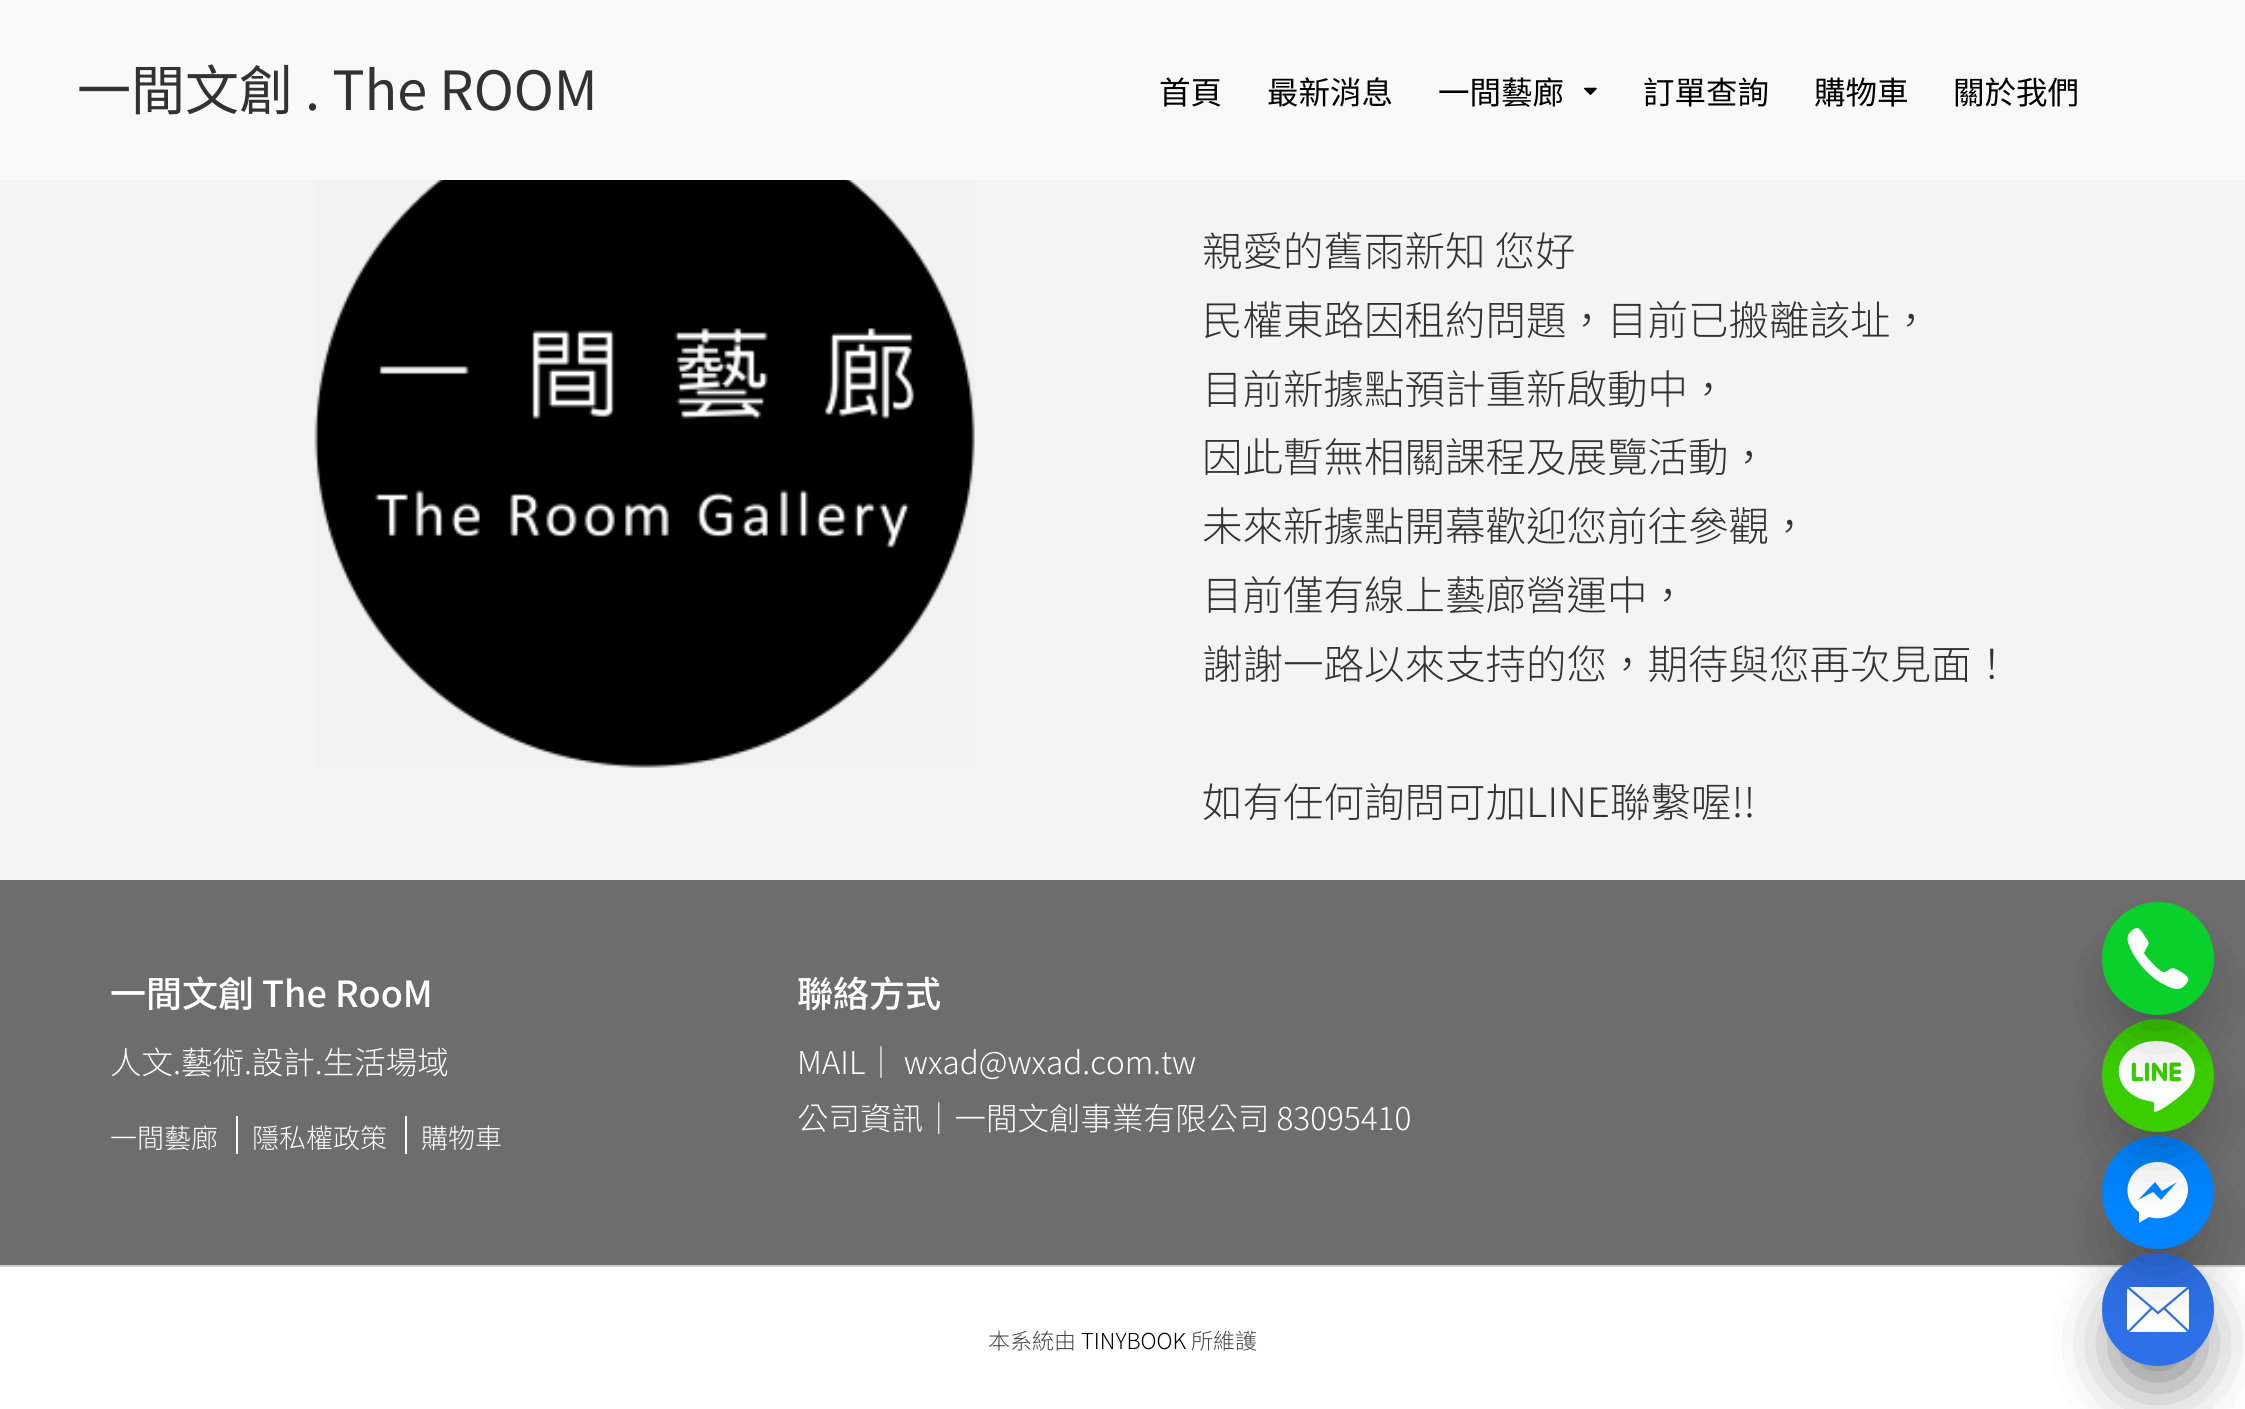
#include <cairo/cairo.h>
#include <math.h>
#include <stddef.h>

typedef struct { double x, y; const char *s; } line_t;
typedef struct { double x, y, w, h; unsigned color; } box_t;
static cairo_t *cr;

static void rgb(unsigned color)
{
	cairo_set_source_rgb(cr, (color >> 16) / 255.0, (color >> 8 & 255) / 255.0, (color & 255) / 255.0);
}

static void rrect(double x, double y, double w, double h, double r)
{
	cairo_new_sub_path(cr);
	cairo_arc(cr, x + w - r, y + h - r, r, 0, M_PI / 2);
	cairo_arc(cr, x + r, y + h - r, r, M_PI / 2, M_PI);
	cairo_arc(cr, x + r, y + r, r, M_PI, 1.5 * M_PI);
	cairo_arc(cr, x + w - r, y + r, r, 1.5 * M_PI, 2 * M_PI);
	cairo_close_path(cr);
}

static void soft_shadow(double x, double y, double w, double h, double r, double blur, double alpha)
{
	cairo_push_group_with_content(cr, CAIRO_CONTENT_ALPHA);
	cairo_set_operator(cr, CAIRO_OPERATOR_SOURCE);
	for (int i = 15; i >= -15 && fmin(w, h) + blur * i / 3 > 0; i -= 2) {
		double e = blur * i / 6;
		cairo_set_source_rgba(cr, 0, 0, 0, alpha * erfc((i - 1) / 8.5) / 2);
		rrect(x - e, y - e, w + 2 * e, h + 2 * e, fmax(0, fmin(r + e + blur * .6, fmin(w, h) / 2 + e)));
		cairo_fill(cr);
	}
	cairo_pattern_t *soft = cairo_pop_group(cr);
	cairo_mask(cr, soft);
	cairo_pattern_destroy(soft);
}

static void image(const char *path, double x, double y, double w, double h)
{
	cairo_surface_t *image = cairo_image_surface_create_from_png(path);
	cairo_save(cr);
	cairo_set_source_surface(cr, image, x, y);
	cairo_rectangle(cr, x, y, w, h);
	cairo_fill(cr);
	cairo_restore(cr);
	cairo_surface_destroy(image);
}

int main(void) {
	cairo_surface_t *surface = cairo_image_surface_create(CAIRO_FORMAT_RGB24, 2245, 1409);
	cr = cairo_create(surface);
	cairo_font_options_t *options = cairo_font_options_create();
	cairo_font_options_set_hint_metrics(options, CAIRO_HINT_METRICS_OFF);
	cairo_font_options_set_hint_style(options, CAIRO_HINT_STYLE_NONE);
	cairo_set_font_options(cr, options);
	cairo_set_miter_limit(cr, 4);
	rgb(0xf4f4f4);
	cairo_paint(cr);
	rgb(0xf9f9f9);
	cairo_rectangle(cr, 0, 0, 2245, 180);
	cairo_fill(cr);
	image("img/1.png", 1584, 87, 13, 8);
	image("img/2.png", 314, 180, 661, 588);
	{
		static const box_t items[] = {
			{0, 880, 2245, 385, 0x6d6d6d},
			{236, 1116, 2, 38, 0xffffff},
			{405, 1116, 2, 38, 0xffffff},
			{0, 1267, 2245, 142, 0xffffff},
			{0, 1265, 2245, 2, 0xcccccc},
		};
		for (size_t i = 0; i < sizeof items / sizeof *items; i++) {
			rgb(items[i].color);
			cairo_rectangle(cr, items[i].x, items[i].y, items[i].w, items[i].h);
			cairo_fill(cr);
		}
	}
	rgb(0x000000);
	soft_shadow(2124, 1310, 68, 67, 33.5, 34, 0.3);
	soft_shadow(2102, 1265, 112, 112, 56, 22.5, 0.05);
	soft_shadow(2124, 1310, 68, 67, 33.5, 34, 0.3);
	rgb(0x2d70e7);
	rrect(2102, 1253, 112, 113, 56);
	cairo_fill(cr);
	rgb(0xffffff);
	rrect(2127, 1287, 62, 45, 4);
	cairo_fill(cr);
	cairo_new_path(cr);
	cairo_move_to(cr, 2150.5, 1309.5);
	cairo_line_to(cr, 2129.5, 1330.5);
	cairo_move_to(cr, 2165.5, 1309.5);
	cairo_line_to(cr, 2187.5, 1330.5);
	cairo_move_to(cr, 2127.5, 1287);
	cairo_line_to(cr, 2158, 1313);
	cairo_line_to(cr, 2189.5, 1286.5);
	rgb(0x2d70e7);
	cairo_set_line_width(cr, 2.2);
	cairo_set_line_cap(cr, CAIRO_LINE_CAP_SQUARE);
	cairo_stroke(cr);
	rgb(0x000000);
	soft_shadow(2124, 1193, 68, 67, 33.5, 34, 0.3);
	rgb(0x0084ff);
	rrect(2102, 1136, 112, 113, 56);
	cairo_fill(cr);
	rgb(0xffffff);
	cairo_set_fill_rule(cr, CAIRO_FILL_RULE_EVEN_ODD);
	cairo_new_path(cr);
	cairo_move_to(cr, 2158, 1162);
	cairo_curve_to(cr, 2130, 1162, 2116, 1195, 2139, 1212);
	cairo_line_to(cr, 2139, 1223);
	cairo_line_to(cr, 2149, 1217);
	cairo_curve_to(cr, 2177, 1225, 2202, 1192, 2179, 1170);
	cairo_curve_to(cr, 2173, 1165, 2166, 1162, 2158, 1162);
	cairo_close_path(cr);
	cairo_move_to(cr, 2161, 1200);
	cairo_line_to(cr, 2153, 1192);
	cairo_line_to(cr, 2138, 1200);
	cairo_line_to(cr, 2155, 1182);
	cairo_line_to(cr, 2162, 1191);
	cairo_line_to(cr, 2177, 1182);
	cairo_close_path(cr);
	cairo_fill(cr);
	rgb(0x000000);
	soft_shadow(2124, 1076, 68, 67, 33.5, 34, 0.3);
	rgb(0x3ace01);
	rrect(2102, 1019, 112, 113, 56);
	cairo_fill(cr);
	image("img/3.png", 2118, 1040, 77, 72);
	rgb(0x000000);
	soft_shadow(2124, 959, 68, 67, 33.5, 34, 0.3);
	rgb(0x0ad02c);
	rrect(2102, 902, 112, 113, 56);
	cairo_fill(cr);
	rgb(0xffffff);
	cairo_new_path(cr);
	cairo_move_to(cr, 2173, 968);
	cairo_curve_to(cr, 2177, 969, 2187, 975, 2188, 978);
	cairo_curve_to(cr, 2189, 980, 2187, 983, 2186, 984);
	cairo_curve_to(cr, 2180, 992, 2173, 989, 2165, 985);
	cairo_curve_to(cr, 2150, 978, 2135, 961, 2129, 945);
	cairo_curve_to(cr, 2128, 943, 2127, 939, 2128, 936);
	cairo_curve_to(cr, 2128, 933, 2135, 927, 2138, 928);
	cairo_curve_to(cr, 2140, 929, 2143, 933, 2144, 935);
	cairo_curve_to(cr, 2151, 945, 2149, 942, 2145, 951);
	cairo_line_to(cr, 2144, 953);
	cairo_curve_to(cr, 2145, 956, 2160, 972, 2163, 972);
	cairo_curve_to(cr, 2165, 973, 2168, 970, 2170, 969);
	cairo_close_path(cr);
	cairo_fill(cr);
	cairo_select_font_face(cr, "Noto Sans TC", CAIRO_FONT_SLANT_NORMAL, CAIRO_FONT_WEIGHT_NORMAL);
	cairo_set_font_size(cr, 54);
	rgb(0x323232);
	cairo_move_to(cr, 77, 110);
	cairo_show_text(cr, "一間文創 . The ROOM");
	cairo_set_font_size(cr, 31.5);
	rgb(0x000000);
	{
		static const line_t items[] = {
			{1159, 104, "首頁"},
			{1267, 104, "最新消息"},
			{1438, 104, "一間藝廊"},
			{1643, 104, "訂單查詢"},
			{1814, 104, "購物車"},
			{1953, 104, "關於我們"},
		};
		for (size_t i = 0; i < sizeof items / sizeof *items; i++) {
			cairo_move_to(cr, items[i].x, items[i].y);
			cairo_show_text(cr, items[i].s);
		}
	}
	cairo_select_font_face(cr, "Noto Sans TC Light", CAIRO_FONT_SLANT_NORMAL, CAIRO_FONT_WEIGHT_NORMAL);
	cairo_set_font_size(cr, 40.5);
	rgb(0x323232);
	{
		static const line_t items[] = {
			{1202, 266, "親愛的舊雨新知 您好"},
			{1202, 335, "民權東路因租約問題，目前已搬離該址，"},
			{1202, 404, "目前新據點預計重新啟動中，"},
			{1202, 472, "因此暫無相關課程及展覽活動，"},
			{1202, 541, "未來新據點開幕歡迎您前往參觀，"},
			{1202, 610, "目前僅有線上藝廊營運中，"},
			{1202, 679, "謝謝一路以來支持的您，期待與您再次見面！"},
			{1202, 817, "如有任何詢問可加LINE聯繫喔!!"},
		};
		for (size_t i = 0; i < sizeof items / sizeof *items; i++) {
			cairo_move_to(cr, items[i].x, items[i].y);
			cairo_show_text(cr, items[i].s);
		}
	}
	cairo_select_font_face(cr, "Noto Sans TC Medium", CAIRO_FONT_SLANT_NORMAL, CAIRO_FONT_WEIGHT_NORMAL);
	cairo_set_font_size(cr, 36);
	rgb(0xffffff);
	cairo_move_to(cr, 110, 1007);
	cairo_show_text(cr, "一間文創 The RooM");
	cairo_select_font_face(cr, "Noto Sans TC Light", CAIRO_FONT_SLANT_NORMAL, CAIRO_FONT_WEIGHT_NORMAL);
	cairo_set_font_size(cr, 31.5);
	cairo_move_to(cr, 110, 1074);
	cairo_show_text(cr, "人文.藝術.設計.生活場域");
	cairo_set_font_size(cr, 27);
	{
		static const line_t items[] = {
			{110, 1148, "一間藝廊"},
			{252, 1148, "隱私權政策"},
			{421, 1148, "購物車"},
		};
		for (size_t i = 0; i < sizeof items / sizeof *items; i++) {
			cairo_move_to(cr, items[i].x, items[i].y);
			cairo_show_text(cr, items[i].s);
		}
	}
	cairo_select_font_face(cr, "Noto Sans TC Medium", CAIRO_FONT_SLANT_NORMAL, CAIRO_FONT_WEIGHT_NORMAL);
	cairo_set_font_size(cr, 36);
	cairo_move_to(cr, 797, 1007);
	cairo_show_text(cr, "聯絡方式");
	cairo_select_font_face(cr, "Noto Sans TC Light", CAIRO_FONT_SLANT_NORMAL, CAIRO_FONT_WEIGHT_NORMAL);
	cairo_set_font_size(cr, 31.5);
	cairo_move_to(cr, 797, 1074);
	cairo_show_text(cr, "MAIL｜ wxad@wxad.com.tw");
	cairo_move_to(cr, 797, 1130);
	cairo_show_text(cr, "公司資訊｜一間文創事業有限公司 83095410");
	cairo_set_font_size(cr, 22);
	rgb(0x43454b);
	cairo_move_to(cr, 988, 1349);
	cairo_show_text(cr, "本系統由");
	rgb(0x000000);
	cairo_move_to(cr, 1081, 1349);
	cairo_show_text(cr, "TINYBOOK");
	rgb(0x43454b);
	cairo_move_to(cr, 1191, 1349);
	cairo_show_text(cr, "所維護");
	cairo_surface_write_to_png(surface, "page.png");
	cairo_font_options_destroy(options);
	cairo_destroy(cr);
	cairo_surface_destroy(surface);
	return 0;
}
